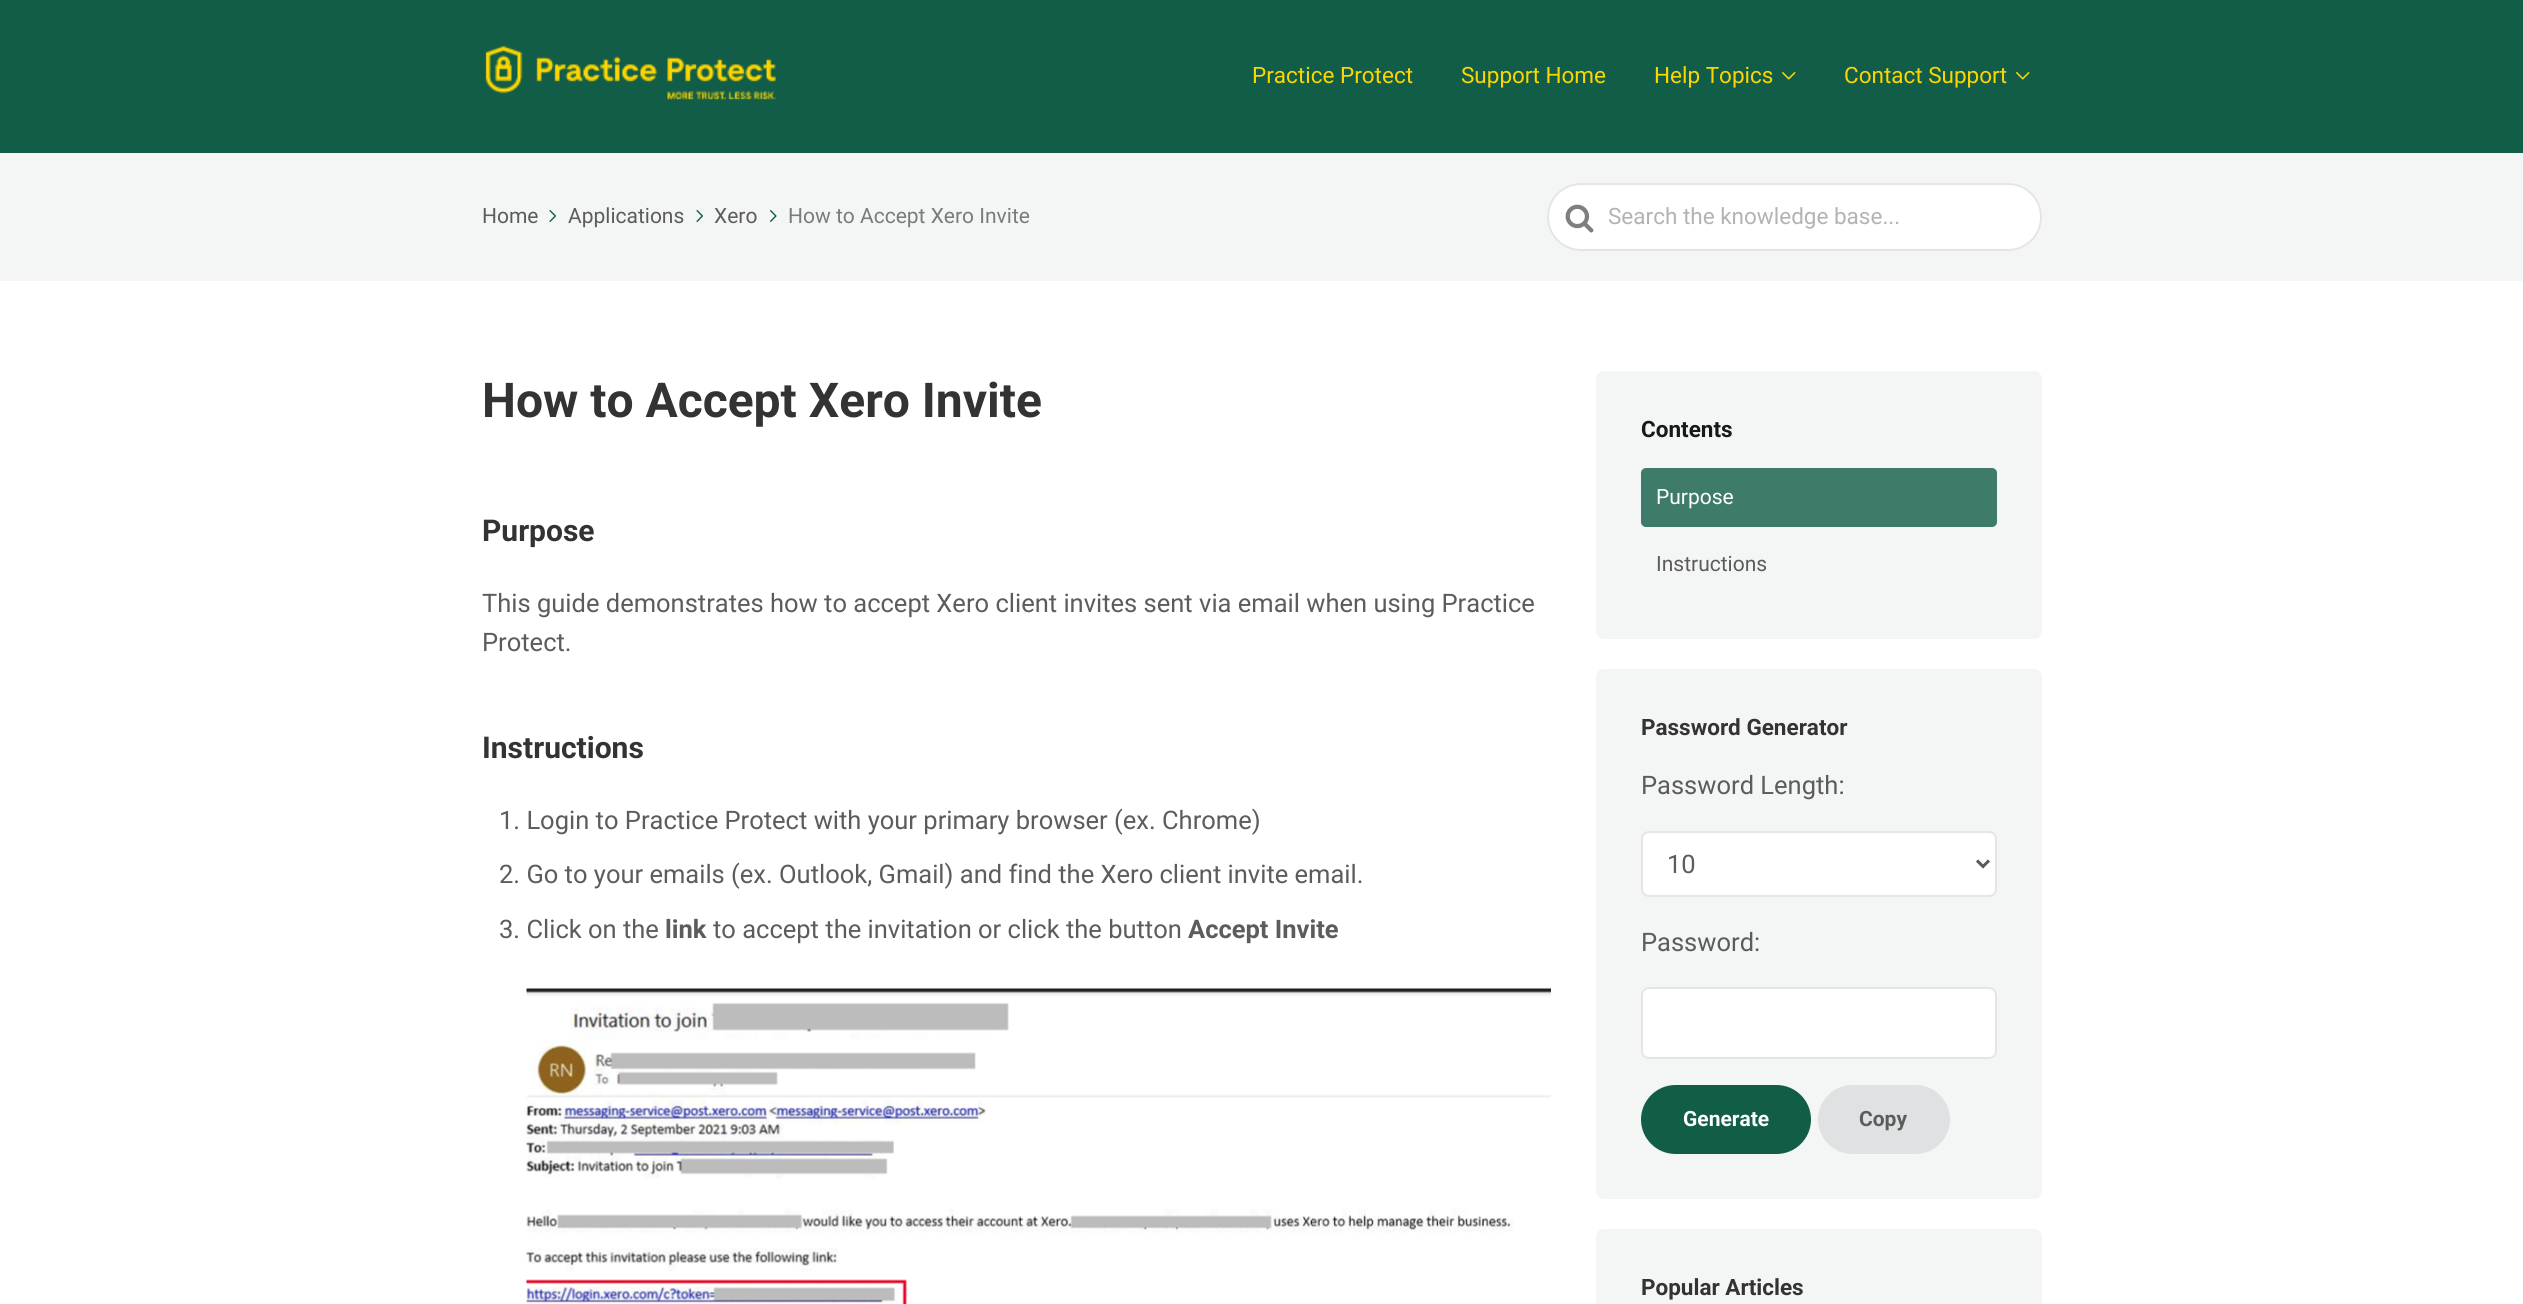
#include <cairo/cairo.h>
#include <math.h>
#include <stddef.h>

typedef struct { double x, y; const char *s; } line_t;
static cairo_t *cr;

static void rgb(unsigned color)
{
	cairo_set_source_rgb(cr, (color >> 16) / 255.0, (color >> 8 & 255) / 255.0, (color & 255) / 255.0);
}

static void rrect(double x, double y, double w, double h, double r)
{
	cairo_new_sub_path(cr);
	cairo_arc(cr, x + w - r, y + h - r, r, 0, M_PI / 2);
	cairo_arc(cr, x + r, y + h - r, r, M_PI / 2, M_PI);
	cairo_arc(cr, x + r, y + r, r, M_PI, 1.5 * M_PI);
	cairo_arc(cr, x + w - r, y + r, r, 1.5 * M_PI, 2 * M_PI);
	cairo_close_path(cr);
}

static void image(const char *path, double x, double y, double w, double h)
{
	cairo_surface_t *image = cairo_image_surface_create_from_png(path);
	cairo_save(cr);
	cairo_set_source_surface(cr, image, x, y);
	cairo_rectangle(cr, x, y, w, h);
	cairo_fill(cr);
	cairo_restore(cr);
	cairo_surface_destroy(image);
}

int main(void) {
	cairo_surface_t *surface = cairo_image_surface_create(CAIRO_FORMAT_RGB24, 2523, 1304);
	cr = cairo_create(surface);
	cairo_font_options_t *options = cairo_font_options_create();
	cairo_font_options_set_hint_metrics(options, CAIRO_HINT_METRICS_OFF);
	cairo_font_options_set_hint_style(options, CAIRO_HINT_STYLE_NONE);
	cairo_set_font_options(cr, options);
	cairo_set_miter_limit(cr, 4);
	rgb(0xffffff);
	cairo_paint(cr);
	rgb(0x115d48);
	cairo_rectangle(cr, 0, 0, 2523, 153);
	cairo_fill(cr);
	image("img/1.png", 485, 46, 291, 54);
	image("img/2.png", 1782, 72, 14, 8);
	image("img/2.png", 2016, 72, 14, 8);
	rgb(0xf4f5f5);
	cairo_rectangle(cr, 0, 153, 2523, 128);
	cairo_fill(cr);
	image("img/3.png", 549, 210, 7, 12);
	image("img/3.png", 696, 210, 7, 12);
	image("img/4.png", 770, 210, 7, 12);
	rgb(0xffffff);
	rrect(1547, 183, 495, 68, 34);
	cairo_fill(cr);
	rrect(1548, 184, 493, 66, 33);
	cairo_set_source_rgba(cr, 0.8, 0.8, 0.8, 0.5);
	cairo_stroke(cr);
	image("img/5.png", 1565, 204, 29, 29);
	image("img/6.png", 526, 988, 1025, 316);
	rgb(0xf4f5f5);
	rrect(1596, 371, 446, 268, 8);
	cairo_fill(cr);
	rgb(0x3e7b6b);
	rrect(1641, 468, 356, 59, 5);
	cairo_fill(cr);
	rgb(0xf4f5f5);
	rrect(1596, 669, 446, 530, 8);
	cairo_fill(cr);
	rgb(0xffffff);
	rrect(1641, 831, 356, 66, 8);
	cairo_fill(cr);
	rrect(1642, 832, 354, 64, 7);
	cairo_set_source_rgba(cr, 0.8, 0.8, 0.8, 0.5);
	cairo_stroke(cr);
	cairo_new_path(cr);
	cairo_move_to(cr, 1977, 860.5);
	cairo_line_to(cr, 1983, 866.5);
	cairo_line_to(cr, 1989, 860.5);
	rgb(0x595959);
	cairo_set_line_width(cr, 3);
	cairo_stroke(cr);
	rgb(0xffffff);
	rrect(1641, 987, 356, 72, 8);
	cairo_fill(cr);
	rrect(1642, 988, 354, 70, 7);
	cairo_set_source_rgba(cr, 0.8, 0.8, 0.8, 0.5);
	cairo_set_line_width(cr, 2);
	cairo_stroke(cr);
	rgb(0x115d48);
	rrect(1641, 1085, 170, 69, 34.5);
	cairo_fill(cr);
	rgb(0xe0e1e2);
	rrect(1818, 1085, 132, 69, 34.5);
	cairo_fill(cr);
	rgb(0xf4f5f5);
	rrect(1596, 1229, 446, 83, 8);
	cairo_fill(cr);
	cairo_select_font_face(cr, "Roboto", CAIRO_FONT_SLANT_NORMAL, CAIRO_FONT_WEIGHT_NORMAL);
	cairo_set_font_size(cr, 22.5);
	rgb(0xfdd600);
	{
		static const line_t items[] = {
			{1252, 83, "Practice Protect"},
			{1461, 83, "Support Home"},
			{1654, 83, "Help Topics"},
			{1844, 83, "Contact Support"},
		};
		for (size_t i = 0; i < sizeof items / sizeof *items; i++) {
			cairo_move_to(cr, items[i].x, items[i].y);
			cairo_show_text(cr, items[i].s);
		}
	}
	cairo_set_font_size(cr, 21);
	rgb(0x5c5c5c);
	{
		static const line_t items[] = {
			{482, 223, "Home"},
			{568, 223, "Applications"},
			{714, 223, "Xero"},
		};
		for (size_t i = 0; i < sizeof items / sizeof *items; i++) {
			cairo_move_to(cr, items[i].x, items[i].y);
			cairo_show_text(cr, items[i].s);
		}
	}
	rgb(0x7a7b7b);
	cairo_move_to(cr, 788, 223);
	cairo_show_text(cr, "How to Accept Xero Invite");
	cairo_set_font_size(cr, 22.5);
	rgb(0xb3b3b3);
	cairo_move_to(cr, 1608, 224);
	cairo_show_text(cr, "Search the knowledge base...");
	cairo_select_font_face(cr, "Roboto", CAIRO_FONT_SLANT_NORMAL, CAIRO_FONT_WEIGHT_BOLD);
	cairo_set_font_size(cr, 48);
	rgb(0x333333);
	cairo_move_to(cr, 482, 417);
	cairo_show_text(cr, "How to Accept Xero Invite");
	cairo_set_font_size(cr, 30);
	cairo_move_to(cr, 482, 541);
	cairo_show_text(cr, "Purpose");
	cairo_select_font_face(cr, "Roboto", CAIRO_FONT_SLANT_NORMAL, CAIRO_FONT_WEIGHT_NORMAL);
	cairo_set_font_size(cr, 25.5);
	rgb(0x5c5c5c);
	cairo_move_to(cr, 482, 612);
	cairo_show_text(cr, "This guide demonstrates how to accept Xero client invites sent via email when using Practice");
	cairo_move_to(cr, 482, 651);
	cairo_show_text(cr, "Protect.");
	cairo_select_font_face(cr, "Roboto", CAIRO_FONT_SLANT_NORMAL, CAIRO_FONT_WEIGHT_BOLD);
	cairo_set_font_size(cr, 30);
	rgb(0x333333);
	cairo_move_to(cr, 482, 758);
	cairo_show_text(cr, "Instructions");
	cairo_select_font_face(cr, "Roboto", CAIRO_FONT_SLANT_NORMAL, CAIRO_FONT_WEIGHT_NORMAL);
	cairo_set_font_size(cr, 25.5);
	rgb(0x5c5c5c);
	{
		static const line_t items[] = {
			{499, 829, "1. Login to Practice Protect with your primary browser (ex. Chrome)"},
			{499, 883, "2. Go to your emails (ex. Outlook, Gmail) and find the Xero client invite email."},
			{499, 938, "3. Click on the"},
		};
		for (size_t i = 0; i < sizeof items / sizeof *items; i++) {
			cairo_move_to(cr, items[i].x, items[i].y);
			cairo_show_text(cr, items[i].s);
		}
	}
	cairo_select_font_face(cr, "Roboto", CAIRO_FONT_SLANT_NORMAL, CAIRO_FONT_WEIGHT_BOLD);
	cairo_move_to(cr, 665, 938);
	cairo_show_text(cr, "link");
	cairo_select_font_face(cr, "Roboto", CAIRO_FONT_SLANT_NORMAL, CAIRO_FONT_WEIGHT_NORMAL);
	cairo_move_to(cr, 713, 938);
	cairo_show_text(cr, "to accept the invitation or click the button");
	cairo_select_font_face(cr, "Roboto", CAIRO_FONT_SLANT_NORMAL, CAIRO_FONT_WEIGHT_BOLD);
	cairo_move_to(cr, 1188, 938);
	cairo_show_text(cr, "Accept Invite");
	cairo_set_font_size(cr, 22.5);
	rgb(0x17181a);
	cairo_move_to(cr, 1641, 437);
	cairo_show_text(cr, "Contents");
	cairo_select_font_face(cr, "Roboto", CAIRO_FONT_SLANT_NORMAL, CAIRO_FONT_WEIGHT_NORMAL);
	cairo_set_font_size(cr, 21);
	rgb(0xffffff);
	cairo_move_to(cr, 1656, 504);
	cairo_show_text(cr, "Purpose");
	rgb(0x5c5c5c);
	cairo_move_to(cr, 1656, 571);
	cairo_show_text(cr, "Instructions");
	cairo_select_font_face(cr, "Roboto", CAIRO_FONT_SLANT_NORMAL, CAIRO_FONT_WEIGHT_BOLD);
	cairo_set_font_size(cr, 22.5);
	rgb(0x333333);
	cairo_move_to(cr, 1641, 735);
	cairo_show_text(cr, "Password Generator");
	cairo_select_font_face(cr, "Roboto", CAIRO_FONT_SLANT_NORMAL, CAIRO_FONT_WEIGHT_NORMAL);
	cairo_set_font_size(cr, 25.5);
	rgb(0x5c5c5c);
	{
		static const line_t items[] = {
			{1641, 794, "Password Length:"},
			{1667, 873, "10"},
			{1641, 951, "Password:"},
		};
		for (size_t i = 0; i < sizeof items / sizeof *items; i++) {
			cairo_move_to(cr, items[i].x, items[i].y);
			cairo_show_text(cr, items[i].s);
		}
	}
	cairo_select_font_face(cr, "Roboto", CAIRO_FONT_SLANT_NORMAL, CAIRO_FONT_WEIGHT_BOLD);
	cairo_set_font_size(cr, 21);
	rgb(0xffffff);
	cairo_move_to(cr, 1683, 1126);
	cairo_show_text(cr, "Generate");
	rgb(0x5c5c5c);
	cairo_move_to(cr, 1859, 1126);
	cairo_show_text(cr, "Copy");
	cairo_set_font_size(cr, 22.5);
	rgb(0x333333);
	cairo_move_to(cr, 1641, 1295);
	cairo_show_text(cr, "Popular Articles");
	cairo_surface_write_to_png(surface, "page.png");
	cairo_font_options_destroy(options);
	cairo_destroy(cr);
	cairo_surface_destroy(surface);
	return 0;
}
